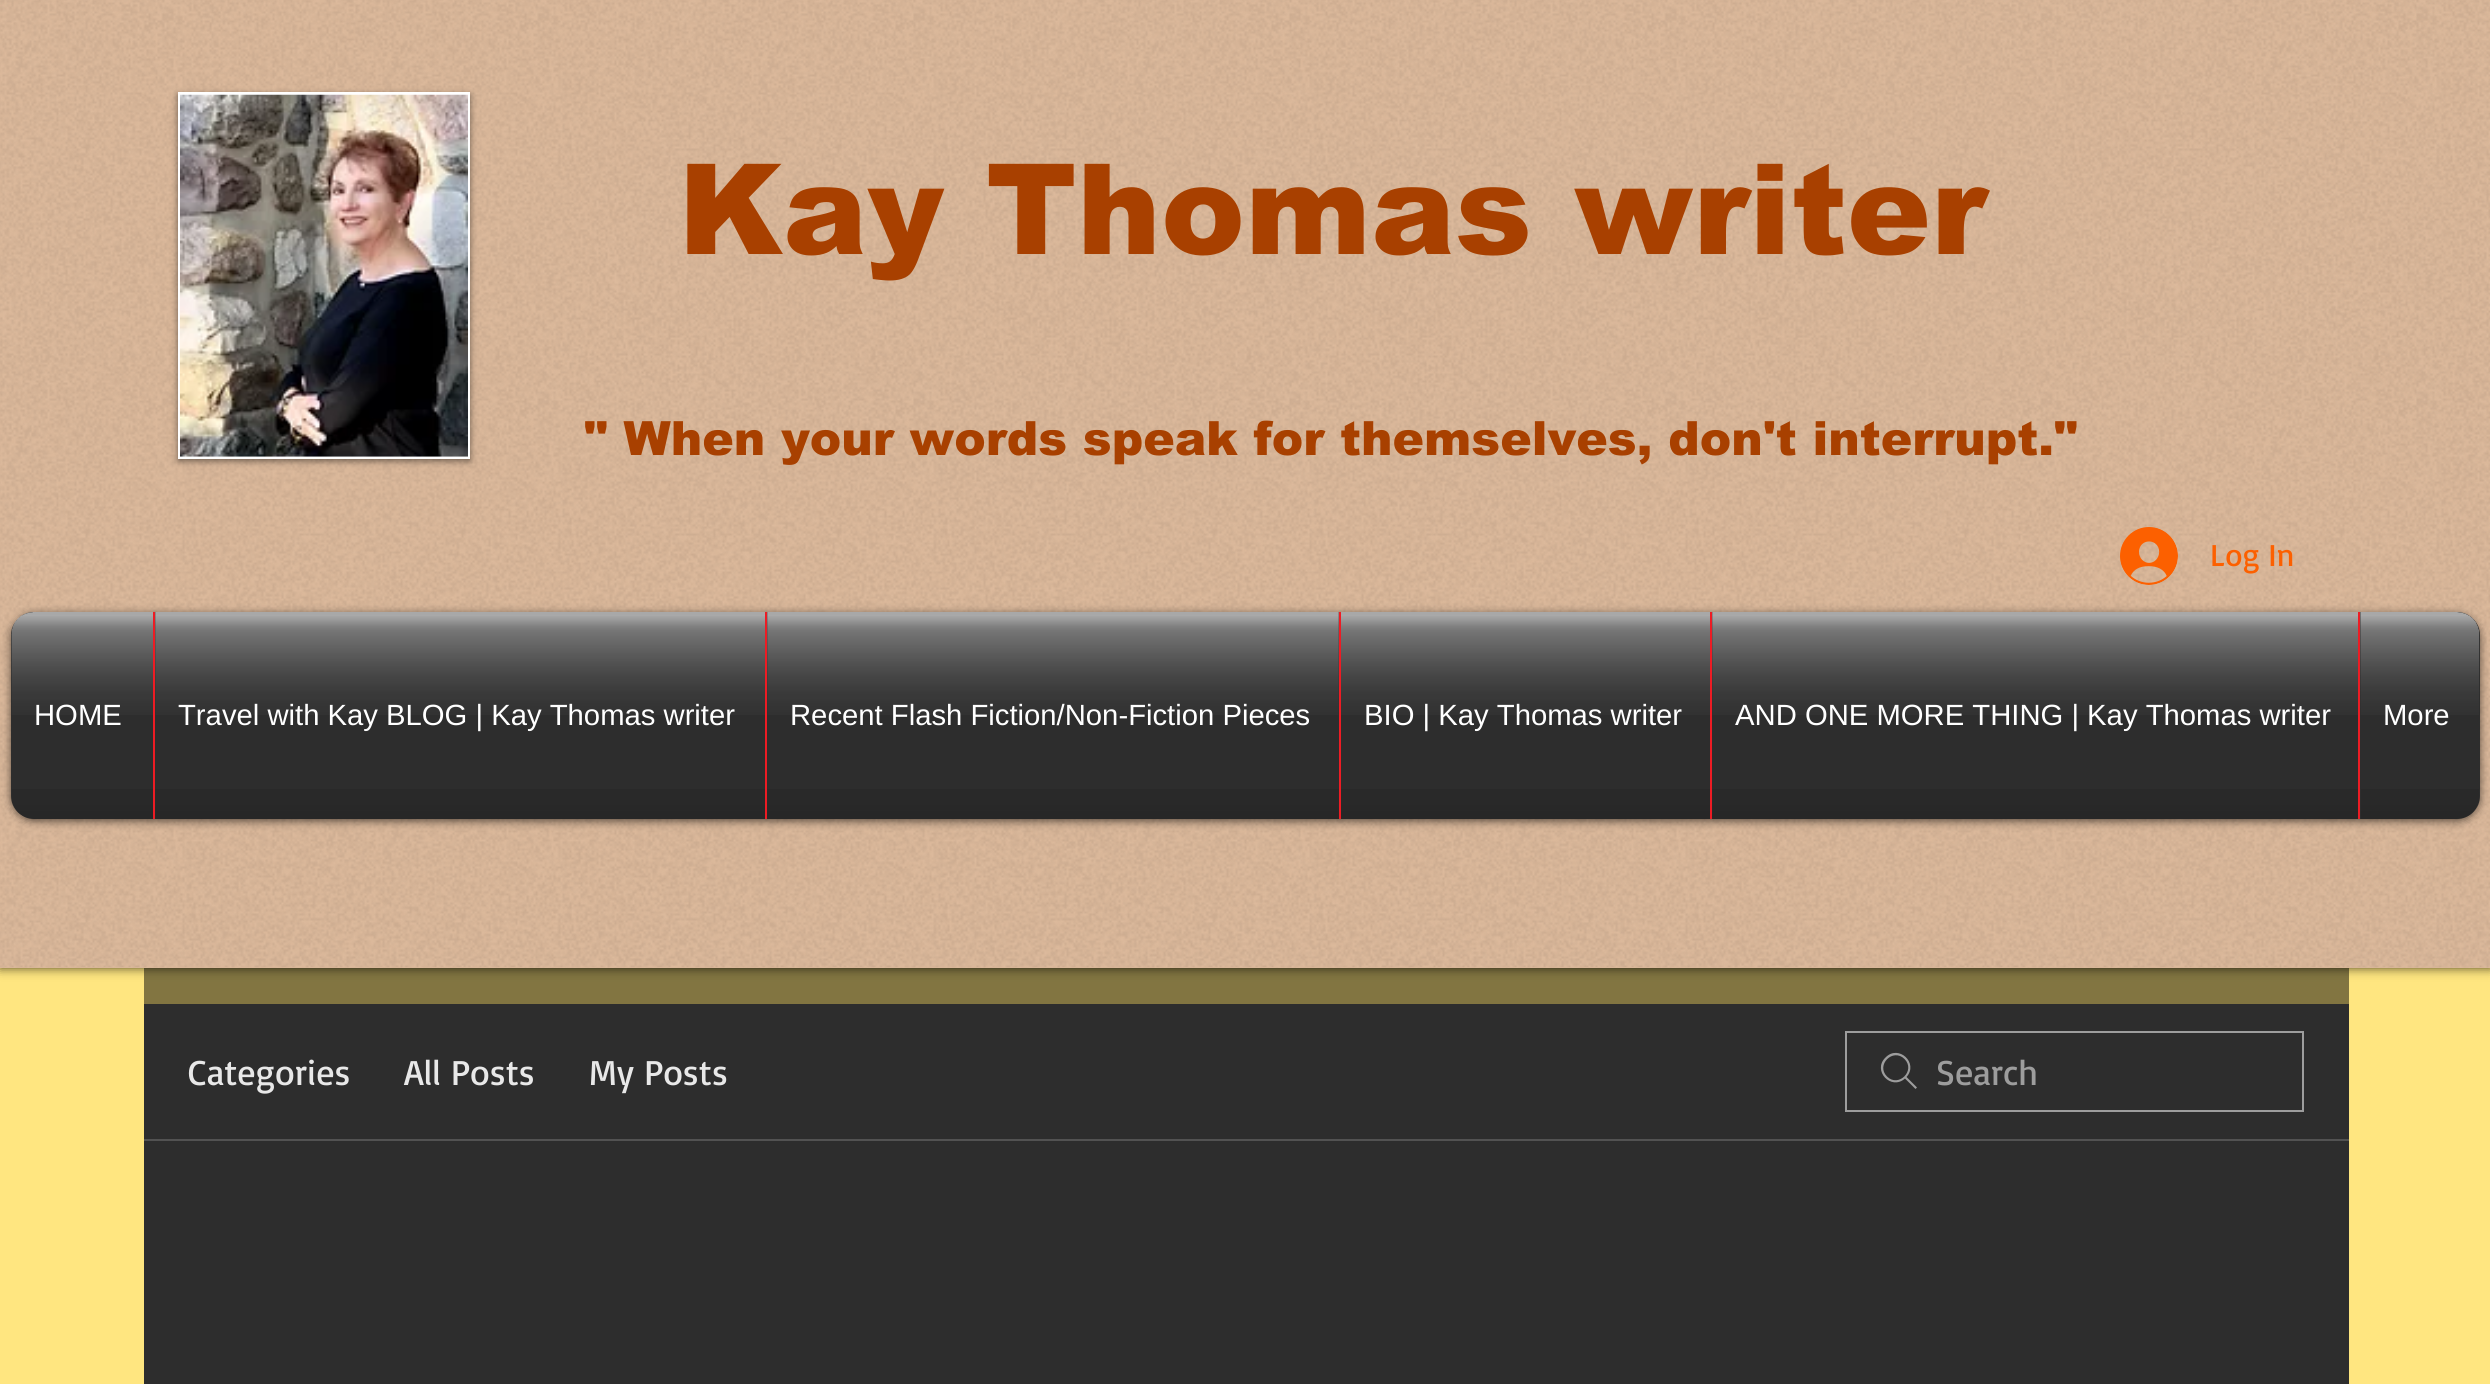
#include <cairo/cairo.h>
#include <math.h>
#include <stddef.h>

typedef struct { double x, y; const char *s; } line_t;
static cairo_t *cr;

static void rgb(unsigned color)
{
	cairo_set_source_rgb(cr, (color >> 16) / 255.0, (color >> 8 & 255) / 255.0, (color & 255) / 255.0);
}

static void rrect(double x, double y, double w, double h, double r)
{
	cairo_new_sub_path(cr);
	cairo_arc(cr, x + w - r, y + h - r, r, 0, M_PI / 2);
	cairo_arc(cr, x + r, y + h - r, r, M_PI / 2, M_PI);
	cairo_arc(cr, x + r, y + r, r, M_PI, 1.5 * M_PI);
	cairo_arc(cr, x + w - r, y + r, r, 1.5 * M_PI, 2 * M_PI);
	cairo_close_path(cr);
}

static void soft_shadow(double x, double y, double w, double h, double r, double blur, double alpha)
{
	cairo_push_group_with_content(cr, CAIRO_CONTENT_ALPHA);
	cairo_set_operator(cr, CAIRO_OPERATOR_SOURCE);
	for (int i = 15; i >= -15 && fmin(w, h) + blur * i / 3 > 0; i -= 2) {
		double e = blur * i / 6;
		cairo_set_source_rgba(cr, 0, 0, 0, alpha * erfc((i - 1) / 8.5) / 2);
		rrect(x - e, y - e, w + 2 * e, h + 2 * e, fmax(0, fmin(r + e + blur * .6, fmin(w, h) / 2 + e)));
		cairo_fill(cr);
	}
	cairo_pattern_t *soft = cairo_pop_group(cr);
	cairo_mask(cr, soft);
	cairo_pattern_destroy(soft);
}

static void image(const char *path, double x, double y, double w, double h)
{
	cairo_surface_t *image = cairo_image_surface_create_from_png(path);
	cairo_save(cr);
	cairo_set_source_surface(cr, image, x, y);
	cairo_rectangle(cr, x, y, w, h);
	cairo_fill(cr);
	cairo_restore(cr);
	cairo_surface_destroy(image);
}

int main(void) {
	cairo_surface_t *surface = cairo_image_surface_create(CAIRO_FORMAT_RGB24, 2490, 1384);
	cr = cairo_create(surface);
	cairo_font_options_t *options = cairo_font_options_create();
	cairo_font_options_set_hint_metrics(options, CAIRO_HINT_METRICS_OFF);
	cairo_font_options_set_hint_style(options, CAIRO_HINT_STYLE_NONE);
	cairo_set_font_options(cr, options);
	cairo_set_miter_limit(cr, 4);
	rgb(0xffe680);
	cairo_paint(cr);
	rgb(0x000000);
	soft_shadow(0, 0, 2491, 968, 0, 5.5, 0.7);
	rgb(0xdbb89a);
	cairo_rectangle(cr, 0, 0, 2490, 968);
	cairo_fill(cr);
	image("img/1.png", 0, 0, 2490, 968);
	rgb(0x000000);
	soft_shadow(178, 95, 292, 366, 0, 3.5, 0.5);
	rgb(0xffffff);
	cairo_rectangle(cr, 178, 92, 292, 367);
	cairo_fill(cr);
	image("img/2.png", 180, 94, 288, 363);
	image("img/3.png", 2120, 527, 58, 58);
	rgb(0x000000);
	soft_shadow(11, 614, 2469, 207, 23, 4.5, 0.6);
	image("img/4.png", 11, 612, 2469, 23);
	image("img/5.png", 12, 802, 2467, 17);
	rgb(0x2d2d2d);
	cairo_new_path(cr);
	cairo_move_to(cr, 34, 612);
	cairo_line_to(cr, 153, 612);
	cairo_line_to(cr, 153, 819);
	cairo_line_to(cr, 34, 819);
	cairo_curve_to(cr, 21.5, 819, 11, 808.5, 11, 796);
	cairo_line_to(cr, 11, 635);
	cairo_curve_to(cr, 11, 622.5, 21.5, 612, 34, 612);
	cairo_close_path(cr);
	cairo_fill(cr);
	image("img/7.png", 12, 789, 141, 30);
	cairo_rectangle(cr, 155, 612, 610, 207);
	cairo_fill(cr);
	rgb(0xed1c24);
	cairo_rectangle(cr, 153, 612, 2, 207);
	cairo_fill(cr);
	image("img/9.png", 155, 789, 610, 30);
	rgb(0x2d2d2d);
	cairo_rectangle(cr, 767, 612, 572, 207);
	cairo_fill(cr);
	rgb(0xed1c24);
	cairo_rectangle(cr, 765, 612, 2, 207);
	cairo_fill(cr);
	image("img/11.png", 767, 789, 572, 30);
	rgb(0x2d2d2d);
	cairo_rectangle(cr, 1341, 612, 369, 207);
	cairo_fill(cr);
	rgb(0xed1c24);
	cairo_rectangle(cr, 1339, 612, 2, 207);
	cairo_fill(cr);
	image("img/13.png", 1341, 789, 369, 30);
	rgb(0x2d2d2d);
	cairo_rectangle(cr, 1712, 612, 646, 207);
	cairo_fill(cr);
	rgb(0xed1c24);
	cairo_rectangle(cr, 1710, 612, 2, 207);
	cairo_fill(cr);
	image("img/15.png", 1712, 789, 646, 30);
	rgb(0x2d2d2d);
	cairo_new_path(cr);
	cairo_move_to(cr, 2358, 612);
	cairo_line_to(cr, 2457, 612);
	cairo_curve_to(cr, 2469.5, 612, 2480, 622.5, 2480, 635);
	cairo_line_to(cr, 2480, 796);
	cairo_curve_to(cr, 2480, 808.5, 2469.5, 819, 2457, 819);
	cairo_line_to(cr, 2358, 819);
	cairo_close_path(cr);
	cairo_fill(cr);
	rgb(0xed1c24);
	cairo_rectangle(cr, 2358, 612, 2, 207);
	cairo_fill(cr);
	image("img/17.png", 2361, 789, 118, 30);
	cairo_set_source_rgba(cr, 0, 0, 0, 0.49);
	cairo_rectangle(cr, 144, 968, 2205, 36);
	cairo_fill(cr);
	rgb(0x2d2d2d);
	cairo_rectangle(cr, 144, 1004, 2205, 380);
	cairo_fill(cr);
	rgb(0x525252);
	cairo_rectangle(cr, 144, 1139, 2205, 2);
	cairo_fill(cr);
	rgb(0x9d9d9d);
	cairo_set_fill_rule(cr, CAIRO_FILL_RULE_EVEN_ODD);
	cairo_new_path(cr);
	cairo_move_to(cr, 1887, 1076.5);
	cairo_curve_to(cr, 1875.5, 1065, 1893, 1047.5, 1904.5, 1059);
	cairo_curve_to(cr, 1916, 1070.5, 1898.5, 1088, 1887, 1076.5);
	cairo_close_path(cr);
	cairo_move_to(cr, 1917, 1087.5);
	cairo_line_to(cr, 1906.5, 1077);
	cairo_curve_to(cr, 1919, 1063, 1898.5, 1044, 1885.5, 1057.5);
	cairo_curve_to(cr, 1872, 1070.5, 1891, 1091, 1905, 1078.5);
	cairo_line_to(cr, 1915.5, 1089);
	cairo_close_path(cr);
	cairo_fill(cr);
	cairo_rectangle(cr, 1846, 1032, 457, 79);
	cairo_stroke(cr);
	cairo_select_font_face(cr, "arial Black", CAIRO_FONT_SLANT_NORMAL, CAIRO_FONT_WEIGHT_NORMAL);
	cairo_set_font_size(cr, 126);
	rgb(0xa84000);
	cairo_move_to(cr, 678, 254);
	cairo_show_text(cr, "Kay Thomas writer");
	cairo_set_font_size(cr, 47.25);
	cairo_move_to(cr, 584, 455);
	cairo_show_text(cr, "\" When your words speak for themselves, don't interrupt.\"");
	cairo_select_font_face(cr, "Basic", CAIRO_FONT_SLANT_NORMAL, CAIRO_FONT_WEIGHT_NORMAL);
	cairo_set_font_size(cr, 31.5);
	rgb(0xfc6000);
	cairo_move_to(cr, 2210, 566);
	cairo_show_text(cr, "Log In");
	cairo_select_font_face(cr, "Liberation Sans", CAIRO_FONT_SLANT_NORMAL, CAIRO_FONT_WEIGHT_NORMAL);
	cairo_set_font_size(cr, 29.25);
	rgb(0xffffff);
	cairo_move_to(cr, 34, 725);
	cairo_show_text(cr, "HOME");
	image("img/6.png", 11, 612, 142, 103);
	cairo_move_to(cr, 178, 725);
	cairo_show_text(cr, "Travel with Kay BLOG | Kay Thomas writer");
	image("img/8.png", 155, 612, 610, 103);
	cairo_move_to(cr, 790, 725);
	cairo_show_text(cr, "Recent Flash Fiction/Non-Fiction Pieces");
	image("img/10.png", 767, 612, 572, 103);
	cairo_move_to(cr, 1364, 725);
	cairo_show_text(cr, "BIO | Kay Thomas writer");
	image("img/12.png", 1341, 612, 369, 103);
	cairo_move_to(cr, 1735, 725);
	cairo_show_text(cr, "AND ONE MORE THING | Kay Thomas writer");
	image("img/14.png", 1712, 612, 646, 103);
	cairo_move_to(cr, 2383, 725);
	cairo_show_text(cr, "More");
	image("img/16.png", 2360, 612, 120, 103);
	cairo_select_font_face(cr, "Basic", CAIRO_FONT_SLANT_NORMAL, CAIRO_FONT_WEIGHT_NORMAL);
	cairo_set_font_size(cr, 36);
	rgb(0xe8e8e8);
	{
		static const line_t items[] = {
			{188, 1085, "Categories"},
			{404, 1085, "All Posts"},
			{589, 1085, "My Posts"},
		};
		for (size_t i = 0; i < sizeof items / sizeof *items; i++) {
			cairo_move_to(cr, items[i].x, items[i].y);
			cairo_show_text(cr, items[i].s);
		}
	}
	rgb(0x9d9d9d);
	cairo_move_to(cr, 1936, 1085);
	cairo_show_text(cr, "Search");
	cairo_surface_write_to_png(surface, "page.png");
	cairo_font_options_destroy(options);
	cairo_destroy(cr);
	cairo_surface_destroy(surface);
	return 0;
}
